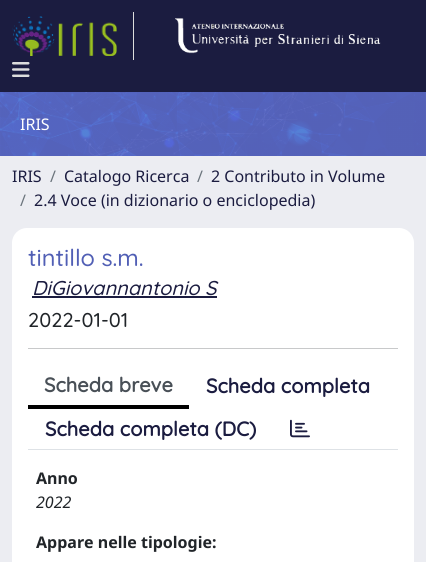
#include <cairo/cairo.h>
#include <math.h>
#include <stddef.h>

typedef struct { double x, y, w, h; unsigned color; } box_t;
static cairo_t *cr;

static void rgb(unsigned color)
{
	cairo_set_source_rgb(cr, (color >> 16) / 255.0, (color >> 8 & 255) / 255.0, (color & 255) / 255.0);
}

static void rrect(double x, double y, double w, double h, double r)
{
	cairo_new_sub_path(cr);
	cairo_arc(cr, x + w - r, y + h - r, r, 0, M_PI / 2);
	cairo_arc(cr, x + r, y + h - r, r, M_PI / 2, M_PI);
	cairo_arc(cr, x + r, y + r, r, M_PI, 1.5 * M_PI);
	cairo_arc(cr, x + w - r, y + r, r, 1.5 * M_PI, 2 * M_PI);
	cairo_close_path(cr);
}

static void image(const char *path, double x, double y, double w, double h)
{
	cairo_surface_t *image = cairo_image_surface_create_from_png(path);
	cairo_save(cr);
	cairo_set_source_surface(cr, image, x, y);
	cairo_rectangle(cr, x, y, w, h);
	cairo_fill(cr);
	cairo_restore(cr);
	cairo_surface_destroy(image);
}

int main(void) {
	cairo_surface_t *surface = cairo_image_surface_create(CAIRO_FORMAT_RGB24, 426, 562);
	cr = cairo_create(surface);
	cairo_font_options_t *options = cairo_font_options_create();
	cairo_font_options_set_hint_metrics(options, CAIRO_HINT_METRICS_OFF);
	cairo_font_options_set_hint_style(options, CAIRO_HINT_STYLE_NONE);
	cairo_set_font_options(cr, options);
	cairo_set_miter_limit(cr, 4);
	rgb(0xecedf2);
	cairo_paint(cr);
	rgb(0x1b1c40);
	cairo_rectangle(cr, 0, 0, 426, 92);
	cairo_fill(cr);
	rgb(0xdddddd);
	cairo_rectangle(cr, 133, 12, 1, 48);
	cairo_fill(cr);
	image("img/1.png", 12, 16, 105, 40);
	image("img/2.png", 175, 18, 206, 36);
	image("img/3.png", 12, 62, 18, 15);
	image("img/4.png", 0, 92, 426, 64);
	rgb(0xffffff);
	rrect(12, 228, 402, 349, 15);
	cairo_fill(cr);
	{
		static const box_t items[] = {
			{32, 296, 185, 2, 0x1b1c40},
			{28, 348, 370, 1, 0xc8c9ca},
			{28, 449, 370, 1, 0xdee2e6},
			{28, 405, 161, 4, 0x000000},
		};
		for (size_t i = 0; i < sizeof items / sizeof *items; i++) {
			rgb(items[i].color);
			cairo_rectangle(cr, items[i].x, items[i].y, items[i].w, items[i].h);
			cairo_fill(cr);
		}
	}
	image("img/5.png", 290, 419, 20, 19);
	cairo_select_font_face(cr, "Noto Sans", CAIRO_FONT_SLANT_NORMAL, CAIRO_FONT_WEIGHT_NORMAL);
	cairo_set_font_size(cr, 16);
	rgb(0xffffff);
	cairo_move_to(cr, 20, 130);
	cairo_show_text(cr, "IRIS");
	rgb(0x1b1c40);
	cairo_move_to(cr, 12, 182);
	cairo_show_text(cr, "IRIS");
	rgb(0x6c757d);
	cairo_move_to(cr, 50, 182);
	cairo_show_text(cr, "/");
	rgb(0x1b1c40);
	cairo_move_to(cr, 64, 182);
	cairo_show_text(cr, "Catalogo Ricerca");
	rgb(0x6c757d);
	cairo_move_to(cr, 197, 182);
	cairo_show_text(cr, "/");
	rgb(0x1b1c40);
	cairo_move_to(cr, 211, 182);
	cairo_show_text(cr, "2 Contributo in Volume");
	rgb(0x6c757d);
	cairo_move_to(cr, 20, 206);
	cairo_show_text(cr, "/");
	rgb(0x1b1c40);
	cairo_move_to(cr, 34, 206);
	cairo_show_text(cr, "2.4 Voce (in dizionario o enciclopedia)");
	cairo_select_font_face(cr, "Quicksand Medium", CAIRO_FONT_SLANT_NORMAL, CAIRO_FONT_WEIGHT_NORMAL);
	cairo_set_font_size(cr, 23.5);
	rgb(0x515fb5);
	cairo_move_to(cr, 28, 266);
	cairo_show_text(cr, "tintillo s.m.");
	cairo_select_font_face(cr, "Quicksand Medium", CAIRO_FONT_SLANT_ITALIC, CAIRO_FONT_WEIGHT_NORMAL);
	cairo_set_font_size(cr, 20);
	rgb(0x1b1c40);
	cairo_move_to(cr, 32, 295);
	cairo_show_text(cr, "DiGiovannantonio S");
	cairo_select_font_face(cr, "Quicksand Medium", CAIRO_FONT_SLANT_NORMAL, CAIRO_FONT_WEIGHT_NORMAL);
	rgb(0x212529);
	cairo_move_to(cr, 28, 327);
	cairo_show_text(cr, "2022-01-01");
	cairo_select_font_face(cr, "Quicksand", CAIRO_FONT_SLANT_NORMAL, CAIRO_FONT_WEIGHT_BOLD);
	rgb(0x495057);
	cairo_move_to(cr, 44, 392);
	cairo_show_text(cr, "Scheda breve");
	rgb(0x1b1c40);
	cairo_move_to(cr, 206, 393);
	cairo_show_text(cr, "Scheda completa");
	cairo_move_to(cr, 45, 436);
	cairo_show_text(cr, "Scheda completa (DC)");
	cairo_select_font_face(cr, "Noto Sans", CAIRO_FONT_SLANT_NORMAL, CAIRO_FONT_WEIGHT_BOLD);
	cairo_set_font_size(cr, 16);
	rgb(0x212529);
	cairo_move_to(cr, 36, 484);
	cairo_show_text(cr, "Anno");
	cairo_select_font_face(cr, "Noto Sans", CAIRO_FONT_SLANT_ITALIC, CAIRO_FONT_WEIGHT_NORMAL);
	cairo_move_to(cr, 36, 508);
	cairo_show_text(cr, "2022");
	cairo_select_font_face(cr, "Noto Sans", CAIRO_FONT_SLANT_NORMAL, CAIRO_FONT_WEIGHT_BOLD);
	cairo_move_to(cr, 36, 548);
	cairo_show_text(cr, "Appare nelle tipologie:");
	cairo_surface_write_to_png(surface, "page.png");
	cairo_font_options_destroy(options);
	cairo_destroy(cr);
	cairo_surface_destroy(surface);
	return 0;
}
